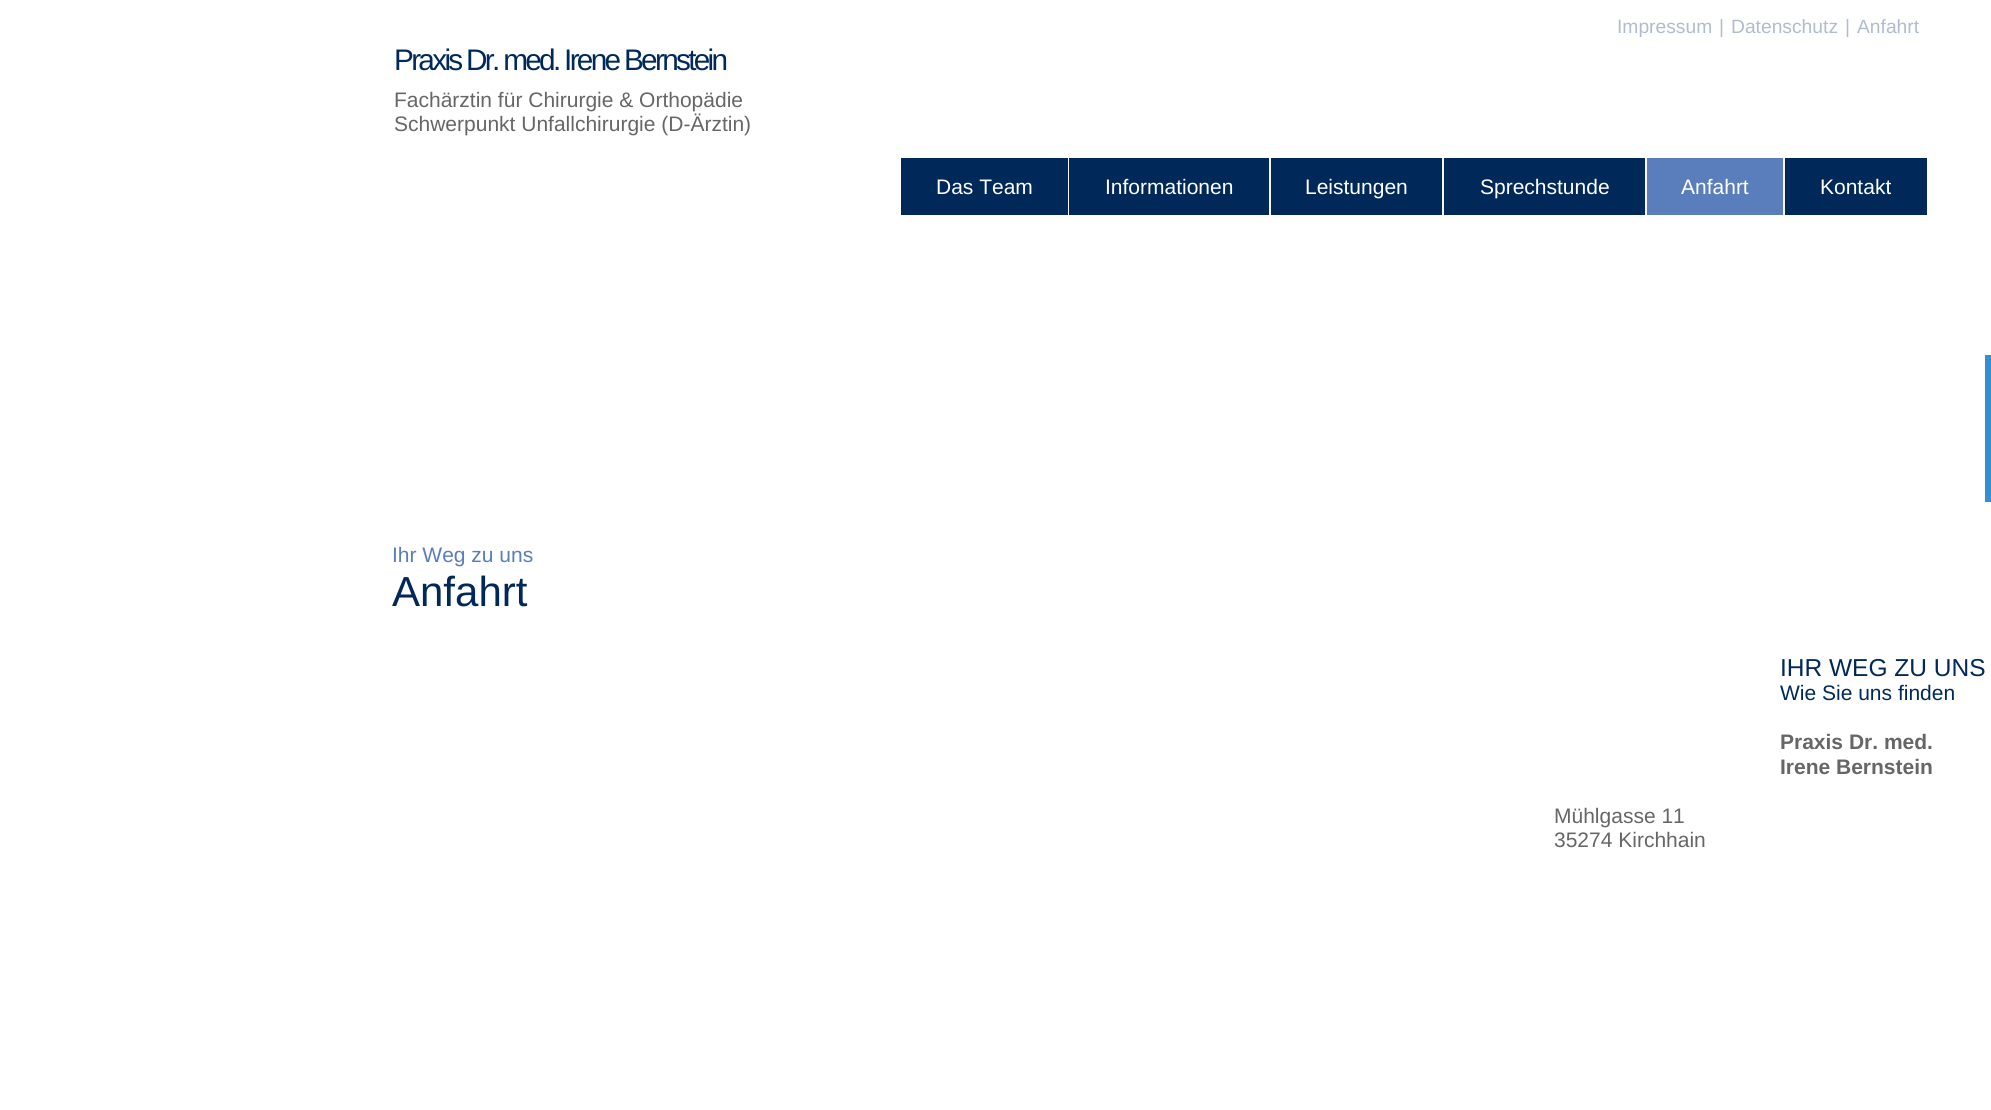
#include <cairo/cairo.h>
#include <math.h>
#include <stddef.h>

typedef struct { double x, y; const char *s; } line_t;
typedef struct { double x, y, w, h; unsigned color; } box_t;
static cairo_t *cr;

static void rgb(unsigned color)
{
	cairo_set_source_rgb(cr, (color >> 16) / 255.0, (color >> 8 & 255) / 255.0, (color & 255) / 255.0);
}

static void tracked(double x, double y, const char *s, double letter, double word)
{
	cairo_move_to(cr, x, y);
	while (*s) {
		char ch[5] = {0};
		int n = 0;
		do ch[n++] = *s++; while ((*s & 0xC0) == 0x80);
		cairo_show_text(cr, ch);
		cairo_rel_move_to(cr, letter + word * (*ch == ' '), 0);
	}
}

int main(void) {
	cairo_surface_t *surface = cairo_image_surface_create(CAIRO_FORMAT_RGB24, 1991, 1110);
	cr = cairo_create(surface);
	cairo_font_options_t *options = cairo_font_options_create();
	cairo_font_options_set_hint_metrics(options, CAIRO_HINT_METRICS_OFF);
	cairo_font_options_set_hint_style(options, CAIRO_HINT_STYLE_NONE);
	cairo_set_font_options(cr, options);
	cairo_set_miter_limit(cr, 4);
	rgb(0xffffff);
	cairo_paint(cr);
	{
		static const box_t items[] = {
			{901, 158, 167, 57, 0x00295a},
			{1068, 158, 1, 57, 0xf6f6f6},
			{1069, 158, 200, 57, 0x00295a},
			{1269, 158, 2, 57, 0xf6f6f6},
			{1271, 158, 171, 57, 0x00295a},
			{1442, 158, 2, 57, 0xf6f6f6},
			{1444, 158, 201, 57, 0x00295a},
			{1645, 158, 2, 57, 0xf6f6f6},
			{1647, 158, 136, 57, 0x597ebb},
			{1783, 158, 2, 57, 0xf6f6f6},
			{1785, 158, 142, 57, 0x00295a},
			{1985, 355, 6, 147, 0x348ed2},
		};
		for (size_t i = 0; i < sizeof items / sizeof *items; i++) {
			rgb(items[i].color);
			cairo_rectangle(cr, items[i].x, items[i].y, items[i].w, items[i].h);
			cairo_fill(cr);
		}
	}
	cairo_select_font_face(cr, "Liberation Sans", CAIRO_FONT_SLANT_NORMAL, CAIRO_FONT_WEIGHT_NORMAL);
	cairo_set_font_size(cr, 19.25);
	rgb(0xb0bdcf);
	{
		static const line_t items[] = {
			{1617, 33, "Impressum"},
			{1719, 33, "|"},
			{1731, 33, "Datenschutz"},
			{1845, 33, "|"},
			{1857, 33, "Anfahrt"},
		};
		for (size_t i = 0; i < sizeof items / sizeof *items; i++) {
			cairo_move_to(cr, items[i].x, items[i].y);
			cairo_show_text(cr, items[i].s);
		}
	}
	cairo_set_font_size(cr, 29.75);
	rgb(0x00295a);
	tracked(394, 70, "Praxis Dr. med. Irene Bernstein", -2.7, 0);
	cairo_set_font_size(cr, 21);
	rgb(0x666666);
	cairo_move_to(cr, 394, 107);
	cairo_show_text(cr, "Fachärztin für Chirurgie & Orthopädie");
	cairo_move_to(cr, 394, 131);
	cairo_show_text(cr, "Schwerpunkt Unfallchirurgie (D-Ärztin)");
	rgb(0xffffff);
	{
		static const line_t items[] = {
			{936, 194, "Das Team"},
			{1105, 194, "Informationen"},
			{1305, 194, "Leistungen"},
			{1480, 194, "Sprechstunde"},
			{1681, 194, "Anfahrt"},
			{1820, 194, "Kontakt"},
		};
		for (size_t i = 0; i < sizeof items / sizeof *items; i++) {
			cairo_move_to(cr, items[i].x, items[i].y);
			cairo_show_text(cr, items[i].s);
		}
	}
	rgb(0x597ebb);
	cairo_move_to(cr, 392, 562);
	cairo_show_text(cr, "Ihr Weg zu uns");
	cairo_set_font_size(cr, 42);
	rgb(0x00295a);
	cairo_move_to(cr, 392, 606);
	cairo_show_text(cr, "Anfahrt");
	cairo_set_font_size(cr, 24.5);
	cairo_move_to(cr, 1780, 676);
	cairo_show_text(cr, "IHR WEG ZU UNS");
	cairo_set_font_size(cr, 21);
	cairo_move_to(cr, 1780, 700);
	cairo_show_text(cr, "Wie Sie uns finden");
	cairo_select_font_face(cr, "Liberation Sans", CAIRO_FONT_SLANT_NORMAL, CAIRO_FONT_WEIGHT_BOLD);
	rgb(0x666666);
	cairo_move_to(cr, 1780, 749);
	cairo_show_text(cr, "Praxis Dr. med.");
	cairo_move_to(cr, 1780, 774);
	cairo_show_text(cr, "Irene Bernstein");
	cairo_select_font_face(cr, "Liberation Sans", CAIRO_FONT_SLANT_NORMAL, CAIRO_FONT_WEIGHT_NORMAL);
	cairo_move_to(cr, 1554, 823);
	cairo_show_text(cr, "Mühlgasse 11");
	cairo_move_to(cr, 1554, 847);
	cairo_show_text(cr, "35274 Kirchhain");
	cairo_surface_write_to_png(surface, "page.png");
	cairo_font_options_destroy(options);
	cairo_destroy(cr);
	cairo_surface_destroy(surface);
	return 0;
}
